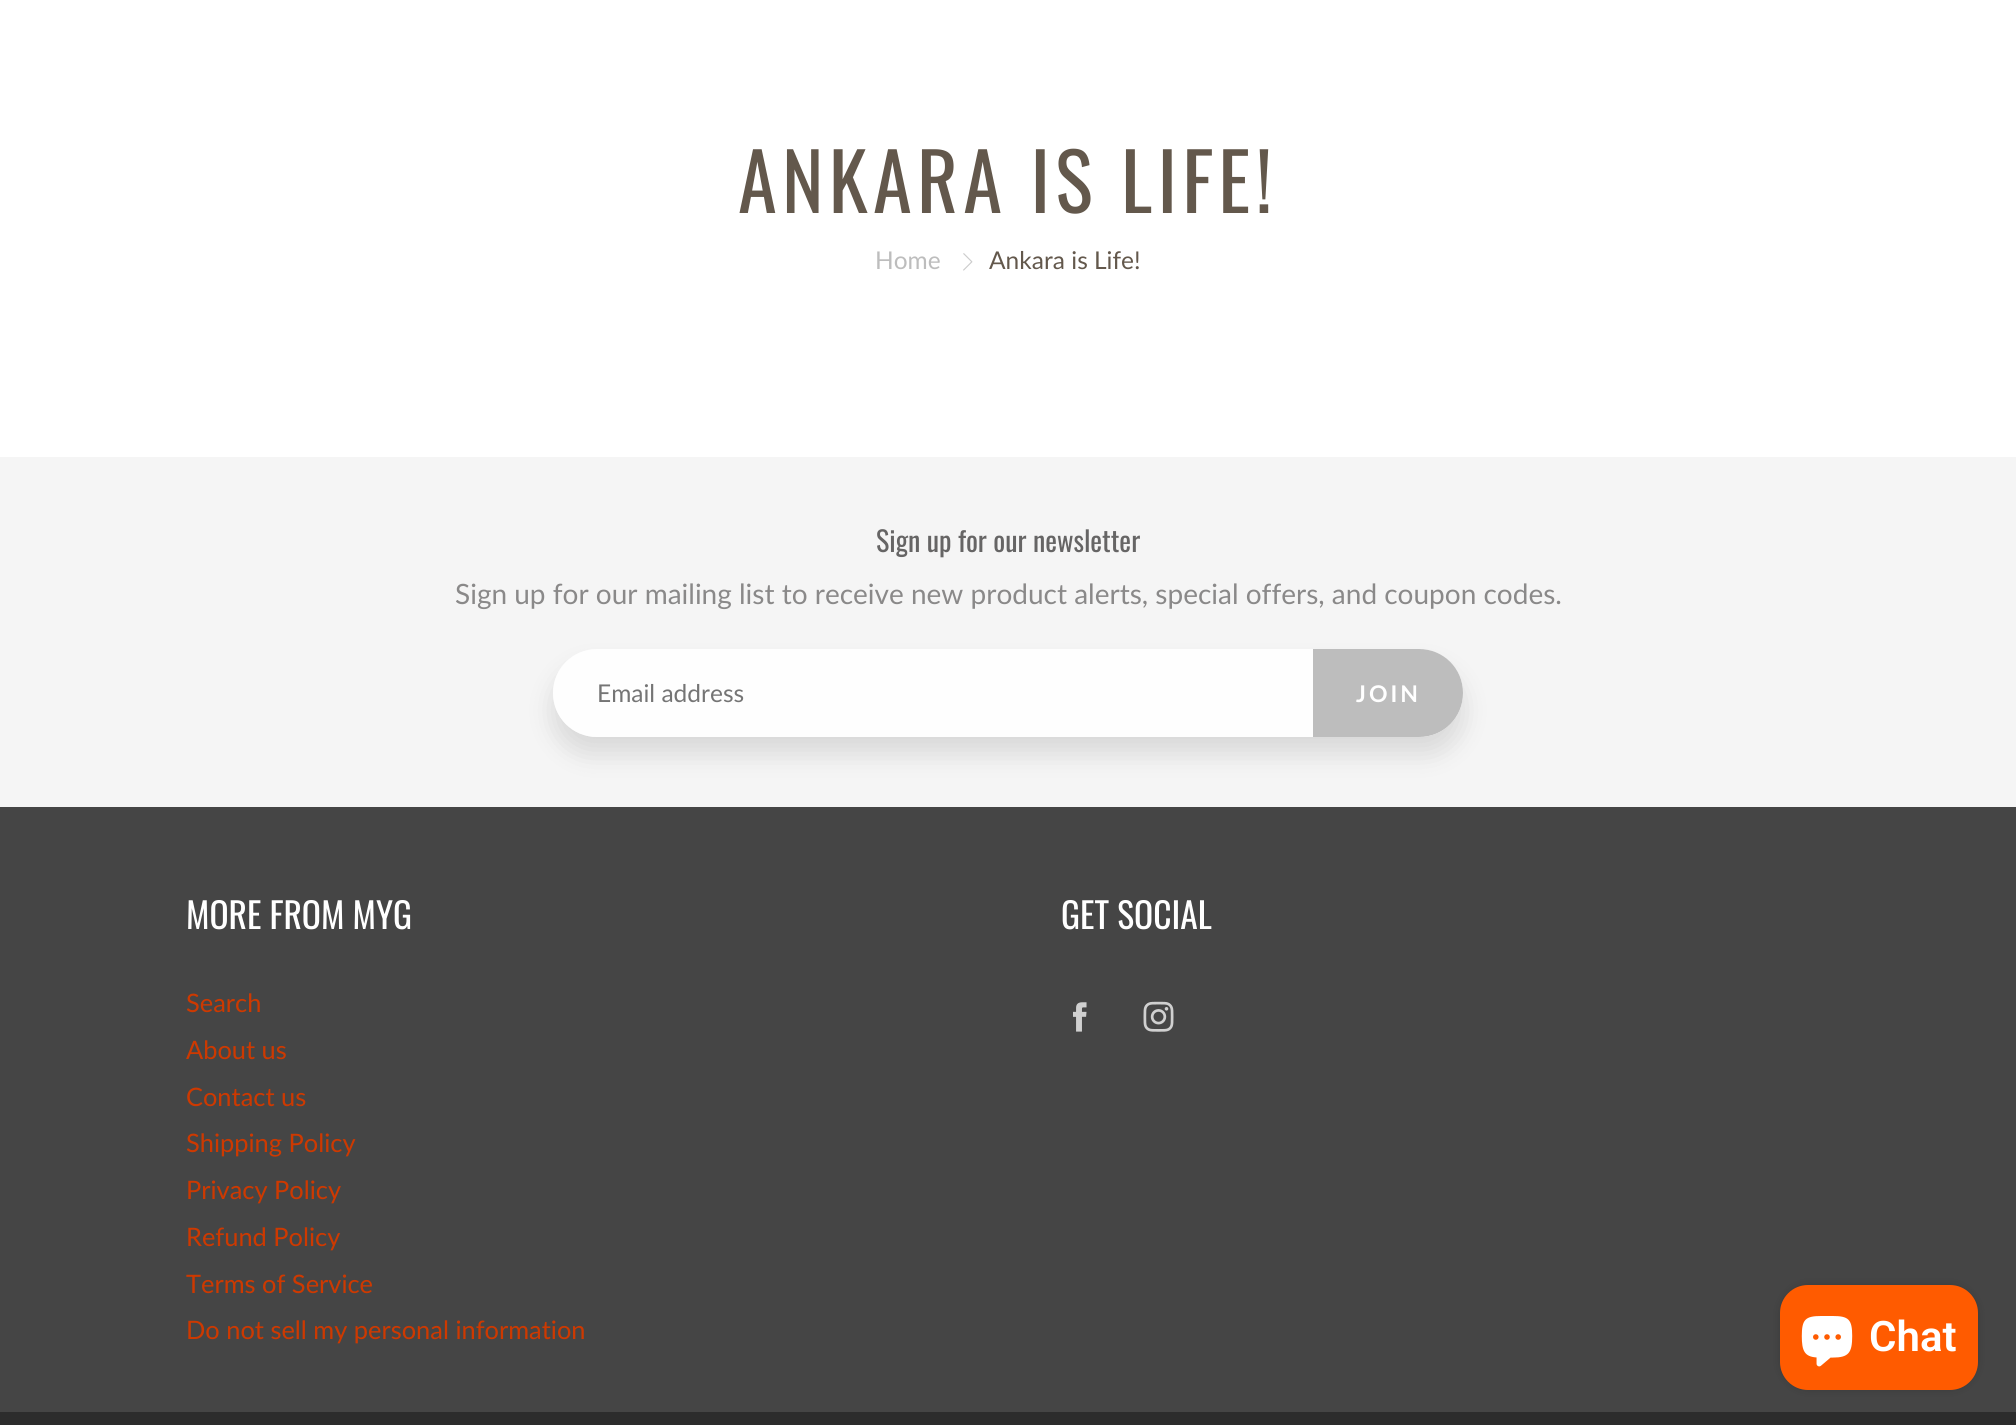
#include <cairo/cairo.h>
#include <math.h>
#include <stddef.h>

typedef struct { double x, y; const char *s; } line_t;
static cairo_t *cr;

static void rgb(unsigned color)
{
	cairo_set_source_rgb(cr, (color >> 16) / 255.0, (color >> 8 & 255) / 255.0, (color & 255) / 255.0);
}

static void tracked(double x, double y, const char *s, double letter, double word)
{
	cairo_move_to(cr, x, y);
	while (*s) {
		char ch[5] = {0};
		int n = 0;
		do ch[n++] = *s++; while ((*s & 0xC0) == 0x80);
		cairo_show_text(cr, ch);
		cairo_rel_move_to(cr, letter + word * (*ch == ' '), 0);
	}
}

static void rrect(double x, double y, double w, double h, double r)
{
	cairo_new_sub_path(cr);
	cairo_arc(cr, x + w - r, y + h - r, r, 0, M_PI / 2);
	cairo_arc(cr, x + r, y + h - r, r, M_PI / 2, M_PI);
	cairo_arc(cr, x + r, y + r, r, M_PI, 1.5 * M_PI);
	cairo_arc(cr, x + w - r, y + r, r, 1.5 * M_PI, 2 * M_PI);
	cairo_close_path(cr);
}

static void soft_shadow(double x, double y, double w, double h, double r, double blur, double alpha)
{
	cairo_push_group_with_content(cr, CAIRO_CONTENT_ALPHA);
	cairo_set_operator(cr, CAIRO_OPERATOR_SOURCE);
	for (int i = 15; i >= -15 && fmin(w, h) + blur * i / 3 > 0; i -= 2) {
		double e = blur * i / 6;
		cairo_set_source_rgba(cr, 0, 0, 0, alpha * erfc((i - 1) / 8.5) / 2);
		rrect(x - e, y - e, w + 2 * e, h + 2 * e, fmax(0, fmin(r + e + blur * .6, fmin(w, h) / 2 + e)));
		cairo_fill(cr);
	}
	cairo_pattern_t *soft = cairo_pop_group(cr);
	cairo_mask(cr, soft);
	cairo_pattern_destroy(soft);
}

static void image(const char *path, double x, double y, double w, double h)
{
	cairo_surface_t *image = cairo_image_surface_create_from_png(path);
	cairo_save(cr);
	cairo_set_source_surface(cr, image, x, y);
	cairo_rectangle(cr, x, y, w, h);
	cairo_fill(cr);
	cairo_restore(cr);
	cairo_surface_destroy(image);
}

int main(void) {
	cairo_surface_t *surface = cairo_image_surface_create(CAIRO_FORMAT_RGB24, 2016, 1425);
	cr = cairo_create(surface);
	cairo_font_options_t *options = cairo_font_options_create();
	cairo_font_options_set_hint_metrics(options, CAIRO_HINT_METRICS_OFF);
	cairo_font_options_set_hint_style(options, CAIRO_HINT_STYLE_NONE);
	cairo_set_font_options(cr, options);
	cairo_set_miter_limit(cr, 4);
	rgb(0xffffff);
	cairo_paint(cr);
	image("img/1.png", 963, 253, 10, 18);
	rgb(0xf5f5f5);
	cairo_rectangle(cr, 0, 457, 2016, 350);
	cairo_fill(cr);
	cairo_save(cr);
	cairo_set_fill_rule(cr, CAIRO_FILL_RULE_EVEN_ODD);
	cairo_new_path(cr);
	cairo_move_to(cr, 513, 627);
	cairo_line_to(cr, 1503, 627);
	cairo_line_to(cr, 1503, 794);
	cairo_line_to(cr, 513, 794);
	cairo_close_path(cr);
	cairo_move_to(cr, 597, 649);
	cairo_line_to(cr, 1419, 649);
	cairo_curve_to(cr, 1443.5, 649, 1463, 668.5, 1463, 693);
	cairo_curve_to(cr, 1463, 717.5, 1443.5, 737, 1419, 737);
	cairo_line_to(cr, 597, 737);
	cairo_curve_to(cr, 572.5, 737, 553, 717.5, 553, 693);
	cairo_curve_to(cr, 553, 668.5, 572.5, 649, 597, 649);
	cairo_close_path(cr);
	cairo_clip(cr);
	rgb(0x000000);
	soft_shadow(553, 667, 910, 87, 43.5, 13, 0.12);
	cairo_restore(cr);
	cairo_set_source_rgba(cr, 1, 1, 1, 0.9);
	rrect(553, 649, 910, 88, 44);
	cairo_fill(cr);
	rgb(0xbdbdbd);
	cairo_new_path(cr);
	cairo_move_to(cr, 1313, 649);
	cairo_line_to(cr, 1419, 649);
	cairo_curve_to(cr, 1443.5, 649, 1463, 668.5, 1463, 693);
	cairo_curve_to(cr, 1463, 717.5, 1443.5, 737, 1419, 737);
	cairo_line_to(cr, 1313, 737);
	cairo_close_path(cr);
	cairo_fill(cr);
	rgb(0x454545);
	cairo_rectangle(cr, 0, 807, 2016, 605);
	cairo_fill(cr);
	image("img/2.png", 1073, 1002, 14, 30);
	image("img/3.png", 1143, 1001, 31, 31);
	rgb(0x2c2c2c);
	cairo_rectangle(cr, 0, 1412, 2016, 13);
	cairo_fill(cr);
	rgb(0x000000);
	soft_shadow(1780, 1285, 198, 105, 28, 4.5, 0.15);
	rgb(0xff5b00);
	rrect(1780, 1285, 198, 105, 28);
	cairo_fill(cr);
	image("img/4.png", 1801, 1316, 52, 51);
	cairo_select_font_face(cr, "Oswald", CAIRO_FONT_SLANT_NORMAL, CAIRO_FONT_WEIGHT_NORMAL);
	cairo_set_font_size(cr, 78.75);
	rgb(0x63584c);
	tracked(738, 213, "ANKARA IS LIFE!", 5.25, 0);
	cairo_select_font_face(cr, "Lato", CAIRO_FONT_SLANT_NORMAL, CAIRO_FONT_WEIGHT_NORMAL);
	cairo_set_font_size(cr, 24.5);
	rgb(0xbdbdbd);
	cairo_move_to(cr, 875, 269);
	cairo_show_text(cr, "Home");
	rgb(0x63584c);
	cairo_move_to(cr, 989, 269);
	cairo_show_text(cr, "Ankara is Life!");
	cairo_select_font_face(cr, "Oswald", CAIRO_FONT_SLANT_NORMAL, CAIRO_FONT_WEIGHT_NORMAL);
	cairo_set_font_size(cr, 28);
	rgb(0x666565);
	cairo_move_to(cr, 876, 552);
	cairo_show_text(cr, "Sign up for our newsletter");
	cairo_select_font_face(cr, "Lato", CAIRO_FONT_SLANT_NORMAL, CAIRO_FONT_WEIGHT_NORMAL);
	rgb(0x8a8989);
	cairo_move_to(cr, 455, 604);
	cairo_show_text(cr, "Sign up for our mailing list to receive new product alerts, special offers, and coupon codes.");
	cairo_set_font_size(cr, 24.5);
	rgb(0x757575);
	cairo_move_to(cr, 597, 702);
	cairo_show_text(cr, "Email address");
	cairo_select_font_face(cr, "Lato", CAIRO_FONT_SLANT_NORMAL, CAIRO_FONT_WEIGHT_BOLD);
	cairo_set_font_size(cr, 23);
	rgb(0xffffff);
	tracked(1356, 702, "JOIN", 3, 0);
	cairo_select_font_face(cr, "Oswald", CAIRO_FONT_SLANT_NORMAL, CAIRO_FONT_WEIGHT_NORMAL);
	cairo_set_font_size(cr, 35.5);
	cairo_move_to(cr, 186, 929);
	cairo_show_text(cr, "MORE FROM MYG");
	cairo_select_font_face(cr, "Lato", CAIRO_FONT_SLANT_NORMAL, CAIRO_FONT_WEIGHT_NORMAL);
	cairo_set_font_size(cr, 25.4);
	rgb(0xce3900);
	{
		static const line_t items[] = {
			{186, 1012, "Search"},
			{186, 1059, "About us"},
			{186, 1106, "Contact us"},
			{186, 1152, "Shipping Policy"},
			{186, 1199, "Privacy Policy"},
			{186, 1246, "Refund Policy"},
			{186, 1293, "Terms of Service"},
			{186, 1339, "Do not sell my personal information"},
		};
		for (size_t i = 0; i < sizeof items / sizeof *items; i++) {
			cairo_move_to(cr, items[i].x, items[i].y);
			cairo_show_text(cr, items[i].s);
		}
	}
	cairo_select_font_face(cr, "Oswald", CAIRO_FONT_SLANT_NORMAL, CAIRO_FONT_WEIGHT_NORMAL);
	cairo_set_font_size(cr, 35.5);
	rgb(0xffffff);
	cairo_move_to(cr, 1061, 929);
	cairo_show_text(cr, "GET SOCIAL");
	cairo_select_font_face(cr, "Roboto SemiBold", CAIRO_FONT_SLANT_NORMAL, CAIRO_FONT_WEIGHT_NORMAL);
	cairo_set_font_size(cr, 42);
	cairo_move_to(cr, 1869, 1351);
	cairo_show_text(cr, "Chat");
	cairo_surface_write_to_png(surface, "page.png");
	cairo_font_options_destroy(options);
	cairo_destroy(cr);
	cairo_surface_destroy(surface);
	return 0;
}
